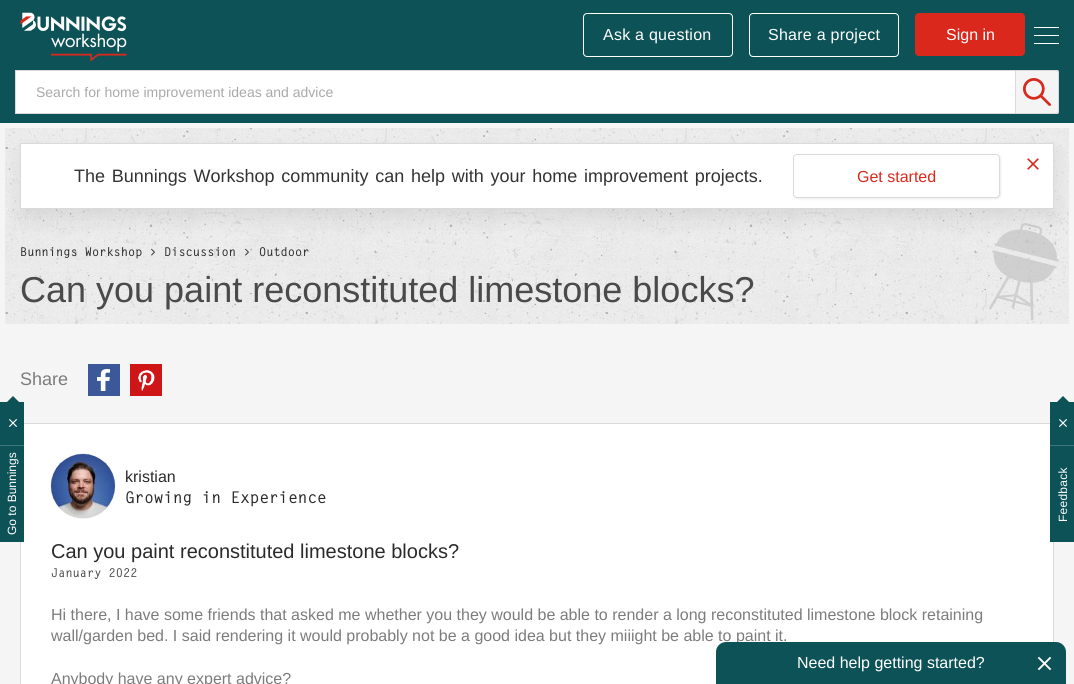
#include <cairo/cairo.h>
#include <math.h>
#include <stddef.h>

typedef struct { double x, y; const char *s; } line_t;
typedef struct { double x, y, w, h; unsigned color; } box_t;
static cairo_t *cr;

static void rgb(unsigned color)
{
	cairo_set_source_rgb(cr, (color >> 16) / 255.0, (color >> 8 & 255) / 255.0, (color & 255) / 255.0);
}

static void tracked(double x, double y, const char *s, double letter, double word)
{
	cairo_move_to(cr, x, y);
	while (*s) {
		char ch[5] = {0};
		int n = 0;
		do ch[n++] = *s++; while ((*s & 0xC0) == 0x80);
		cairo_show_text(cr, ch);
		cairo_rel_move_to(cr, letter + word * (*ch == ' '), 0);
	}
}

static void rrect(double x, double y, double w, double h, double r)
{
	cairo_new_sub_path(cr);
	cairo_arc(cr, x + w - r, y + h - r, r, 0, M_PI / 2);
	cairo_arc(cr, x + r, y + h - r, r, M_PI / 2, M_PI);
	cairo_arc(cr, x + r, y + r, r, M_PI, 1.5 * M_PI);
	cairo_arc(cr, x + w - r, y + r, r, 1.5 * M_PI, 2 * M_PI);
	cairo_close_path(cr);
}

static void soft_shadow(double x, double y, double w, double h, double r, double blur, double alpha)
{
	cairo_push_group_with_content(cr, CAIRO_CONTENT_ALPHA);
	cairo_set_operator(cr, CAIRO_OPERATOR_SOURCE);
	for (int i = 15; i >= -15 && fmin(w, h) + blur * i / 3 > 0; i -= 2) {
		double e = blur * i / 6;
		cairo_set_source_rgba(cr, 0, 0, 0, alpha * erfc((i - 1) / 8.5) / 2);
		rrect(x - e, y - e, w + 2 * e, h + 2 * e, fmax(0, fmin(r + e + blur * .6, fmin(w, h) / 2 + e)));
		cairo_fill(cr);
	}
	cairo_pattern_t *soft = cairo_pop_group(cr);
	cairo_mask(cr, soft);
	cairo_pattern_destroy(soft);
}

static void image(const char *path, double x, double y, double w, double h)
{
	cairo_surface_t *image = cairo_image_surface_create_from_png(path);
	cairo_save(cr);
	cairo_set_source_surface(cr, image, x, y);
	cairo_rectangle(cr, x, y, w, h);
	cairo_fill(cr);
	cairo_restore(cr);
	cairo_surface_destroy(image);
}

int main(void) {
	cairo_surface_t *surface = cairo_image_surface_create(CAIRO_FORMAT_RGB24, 1074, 684);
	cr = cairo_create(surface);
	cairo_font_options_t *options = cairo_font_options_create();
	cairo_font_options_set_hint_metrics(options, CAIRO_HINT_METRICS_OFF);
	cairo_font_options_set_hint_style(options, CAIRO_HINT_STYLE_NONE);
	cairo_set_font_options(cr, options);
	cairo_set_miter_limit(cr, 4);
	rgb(0xf5f5f5);
	cairo_paint(cr);
	cairo_rectangle(cr, 20.5, 423.5, 1033, 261);
	rgb(0xdadada);
	cairo_set_line_width(cr, 1);
	cairo_stroke(cr);
	rgb(0xffffff);
	cairo_rectangle(cr, 21, 424, 1032, 260);
	cairo_fill(cr);
	rgb(0x0d5257);
	cairo_rectangle(cr, 0, 402, 24, 140);
	cairo_fill(cr);
	cairo_new_path(cr);
	cairo_move_to(cr, 21, 404);
	cairo_line_to(cr, 5, 404);
	cairo_line_to(cr, 13, 396);
	cairo_close_path(cr);
	cairo_fill(cr);
	image("img/1.png", 9, 419, 8, 8);
	rgb(0x3d7579);
	cairo_rectangle(cr, 0, 445, 24, 1);
	cairo_fill(cr);
	image("img/4.png", 5, 128, 1064, 196);
	rgb(0x000000);
	soft_shadow(21, 153, 1034, 66, 0, 10, 0.08);
	rgb(0x0d5257);
	cairo_rectangle(cr, 0, 0, 1074, 123);
	cairo_fill(cr);
	image("img/2.png", 20, 12, 107, 50);
	{
		static const box_t items[] = {
			{1034, 27, 25, 1, 0xffffff},
			{1034, 35, 25, 1, 0xffffff},
			{1034, 43, 25, 1, 0xffffff},
		};
		for (size_t i = 0; i < sizeof items / sizeof *items; i++) {
			rgb(items[i].color);
			cairo_rectangle(cr, items[i].x, items[i].y, items[i].w, items[i].h);
			cairo_fill(cr);
		}
	}
	rrect(583.5, 13.5, 149, 43, 3.5);
	cairo_stroke(cr);
	rrect(749.5, 13.5, 149, 43, 3.5);
	cairo_stroke(cr);
	rgb(0xda291c);
	rrect(915.5, 13.5, 109, 42, 3.5);
	cairo_fill_preserve(cr);
	cairo_stroke(cr);
	rgb(0xffffff);
	cairo_new_path(cr);
	cairo_move_to(cr, 15.5, 70.5);
	cairo_line_to(cr, 1057, 70.5);
	cairo_curve_to(cr, 1058, 70.5, 1058.5, 71, 1058.5, 72);
	cairo_line_to(cr, 1058.5, 112);
	cairo_curve_to(cr, 1058.5, 113, 1058, 113.5, 1057, 113.5);
	cairo_line_to(cr, 15.5, 113.5);
	cairo_close_path(cr);
	cairo_fill_preserve(cr);
	rgb(0xdadada);
	cairo_stroke(cr);
	rgb(0xf4f4f4);
	cairo_new_path(cr);
	cairo_move_to(cr, 1015, 70);
	cairo_line_to(cr, 1055, 70);
	cairo_curve_to(cr, 1057, 70, 1059, 72, 1059, 74);
	cairo_line_to(cr, 1059, 110);
	cairo_curve_to(cr, 1059, 112, 1057, 114, 1055, 114);
	cairo_line_to(cr, 1015, 114);
	cairo_close_path(cr);
	cairo_fill(cr);
	image("img/3.png", 1023, 78, 28, 28);
	cairo_new_path(cr);
	cairo_move_to(cr, 1015.5, 70.5);
	cairo_line_to(cr, 1055, 70.5);
	cairo_curve_to(cr, 1057, 70.5, 1058.5, 72, 1058.5, 74);
	cairo_line_to(cr, 1058.5, 110);
	cairo_curve_to(cr, 1058.5, 112, 1057, 113.5, 1055, 113.5);
	cairo_line_to(cr, 1015.5, 113.5);
	cairo_close_path(cr);
	rgb(0xdadada);
	cairo_stroke(cr);
	rgb(0xffffff);
	cairo_rectangle(cr, 20.5, 143.5, 1033, 65);
	cairo_fill_preserve(cr);
	rgb(0xdadada);
	cairo_stroke(cr);
	image("img/5.png", 1027, 158, 12, 12);
	rgb(0x000000);
	soft_shadow(794, 155, 207, 44, 4, 1, 0.08);
	rgb(0xffffff);
	rrect(793.5, 154.5, 206, 43, 3.5);
	cairo_fill_preserve(cr);
	rgb(0xdadada);
	cairo_stroke(cr);
	image("img/6.png", 151, 248, 4, 8);
	image("img/7.png", 245, 248, 4, 8);
	image("img/8.png", 989, 223, 70, 97);
	rgb(0x3b5998);
	cairo_rectangle(cr, 88, 364, 32, 32);
	cairo_fill(cr);
	image("img/9.png", 97, 369, 13, 22);
	image("img/10.png", 130, 364, 32, 32);
	rgb(0xc4c4c4);
	soft_shadow(51, 454, 64, 64, 32, 0.5, 1);
	image("img/11.png", 51, 454, 64, 64);
	rgb(0x0d5257);
	cairo_rectangle(cr, 1050, 402, 24, 140);
	cairo_fill(cr);
	cairo_new_path(cr);
	cairo_move_to(cr, 1071, 404);
	cairo_line_to(cr, 1055, 404);
	cairo_line_to(cr, 1063, 396);
	cairo_close_path(cr);
	cairo_fill(cr);
	image("img/1.png", 1059, 419, 8, 8);
	rgb(0x3d7579);
	cairo_rectangle(cr, 1050, 445, 24, 1);
	cairo_fill(cr);
	cairo_select_font_face(cr, "Liberation Sans", CAIRO_FONT_SLANT_NORMAL, CAIRO_FONT_WEIGHT_NORMAL);
	cairo_set_font_size(cr, 12);
	rgb(0xffffff);
	cairo_save(cr);
	cairo_translate(cr, 16, 535);
	cairo_rotate(cr, -90 * M_PI / 180);
	cairo_move_to(cr, 0, 0);
	cairo_show_text(cr, "Go to Bunnings");
	cairo_restore(cr);
	cairo_set_font_size(cr, 16);
	tracked(603, 40, "Ask a question", 0.25, 0);
	tracked(768, 40, "Share a project", 0.25, 0);
	cairo_move_to(cr, 946, 40);
	cairo_show_text(cr, "Sign in");
	cairo_set_font_size(cr, 14);
	rgb(0xa9a9a9);
	cairo_move_to(cr, 36, 97);
	cairo_show_text(cr, "Search for home improvement ideas and advice");
	cairo_set_font_size(cr, 18);
	rgb(0x333333);
	tracked(74, 182, "The Bunnings Workshop community can help with your home improvement projects.", 0, 1.75);
	cairo_set_font_size(cr, 16);
	rgb(0xda291c);
	cairo_move_to(cr, 857, 182);
	cairo_show_text(cr, "Get started");
	cairo_select_font_face(cr, "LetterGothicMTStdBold", CAIRO_FONT_SLANT_NORMAL, CAIRO_FONT_WEIGHT_BOLD);
	cairo_set_font_size(cr, 12);
	rgb(0x2a2a2a);
	{
		static const line_t items[] = {
			{20, 256, "Bunnings Workshop"},
			{164, 256, "Discussion"},
			{259, 256, "Outdoor"},
		};
		for (size_t i = 0; i < sizeof items / sizeof *items; i++) {
			cairo_move_to(cr, items[i].x, items[i].y);
			cairo_show_text(cr, items[i].s);
		}
	}
	cairo_select_font_face(cr, "Liberation Sans", CAIRO_FONT_SLANT_NORMAL, CAIRO_FONT_WEIGHT_NORMAL);
	cairo_set_font_size(cr, 36);
	rgb(0x4a4a4a);
	cairo_move_to(cr, 20, 302);
	cairo_show_text(cr, "Can you paint reconstituted limestone blocks?");
	cairo_set_font_size(cr, 18);
	rgb(0x7c7c7c);
	cairo_move_to(cr, 20, 385);
	cairo_show_text(cr, "Share");
	cairo_set_font_size(cr, 16);
	rgb(0x2a2a2a);
	cairo_move_to(cr, 125, 482);
	cairo_show_text(cr, "kristian");
	cairo_select_font_face(cr, "LetterGothicMTStdBold", CAIRO_FONT_SLANT_NORMAL, CAIRO_FONT_WEIGHT_BOLD);
	cairo_move_to(cr, 125, 503);
	cairo_show_text(cr, "Growing in Experience");
	cairo_select_font_face(cr, "Liberation Sans", CAIRO_FONT_SLANT_NORMAL, CAIRO_FONT_WEIGHT_NORMAL);
	cairo_set_font_size(cr, 20);
	cairo_move_to(cr, 51, 558);
	cairo_show_text(cr, "Can you paint reconstituted limestone blocks?");
	cairo_select_font_face(cr, "LetterGothicMTStdBold", CAIRO_FONT_SLANT_NORMAL, CAIRO_FONT_WEIGHT_BOLD);
	cairo_set_font_size(cr, 12);
	rgb(0x4a4a4a);
	cairo_move_to(cr, 51, 577);
	cairo_show_text(cr, "January 2022");
	cairo_select_font_face(cr, "Liberation Sans", CAIRO_FONT_SLANT_NORMAL, CAIRO_FONT_WEIGHT_NORMAL);
	cairo_set_font_size(cr, 16);
	rgb(0x7c7c7c);
	{
		static const line_t items[] = {
			{51, 620, "Hi there, I have some friends that asked me whether you they would be able to render a long reconstituted limestone block retaining"},
			{51, 641, "wall/garden bed. I said rendering it would probably not be a good idea but they miiight be able to paint it."},
			{51, 684, "Anybody have any expert advice?"},
		};
		for (size_t i = 0; i < sizeof items / sizeof *items; i++) {
			cairo_move_to(cr, items[i].x, items[i].y);
			cairo_show_text(cr, items[i].s);
		}
	}
	rgb(0x0d5257);
	cairo_new_path(cr);
	cairo_move_to(cr, 726, 642);
	cairo_line_to(cr, 1056, 642);
	cairo_curve_to(cr, 1061.5, 642, 1066, 646.5, 1066, 652);
	cairo_line_to(cr, 1066, 684);
	cairo_line_to(cr, 716, 684);
	cairo_line_to(cr, 716, 652);
	cairo_curve_to(cr, 716, 646.5, 720.5, 642, 726, 642);
	cairo_close_path(cr);
	cairo_fill(cr);
	rgb(0xffffff);
	cairo_move_to(cr, 797, 668);
	cairo_show_text(cr, "Need help getting started?");
	image("img/12.png", 1037, 656, 15, 15);
	cairo_set_font_size(cr, 12);
	cairo_save(cr);
	cairo_translate(cr, 1067, 522);
	cairo_rotate(cr, -90 * M_PI / 180);
	tracked(0, 0, "Feedback", 0.25, 0);
	cairo_restore(cr);
	cairo_surface_write_to_png(surface, "page.png");
	cairo_font_options_destroy(options);
	cairo_destroy(cr);
	cairo_surface_destroy(surface);
	return 0;
}
